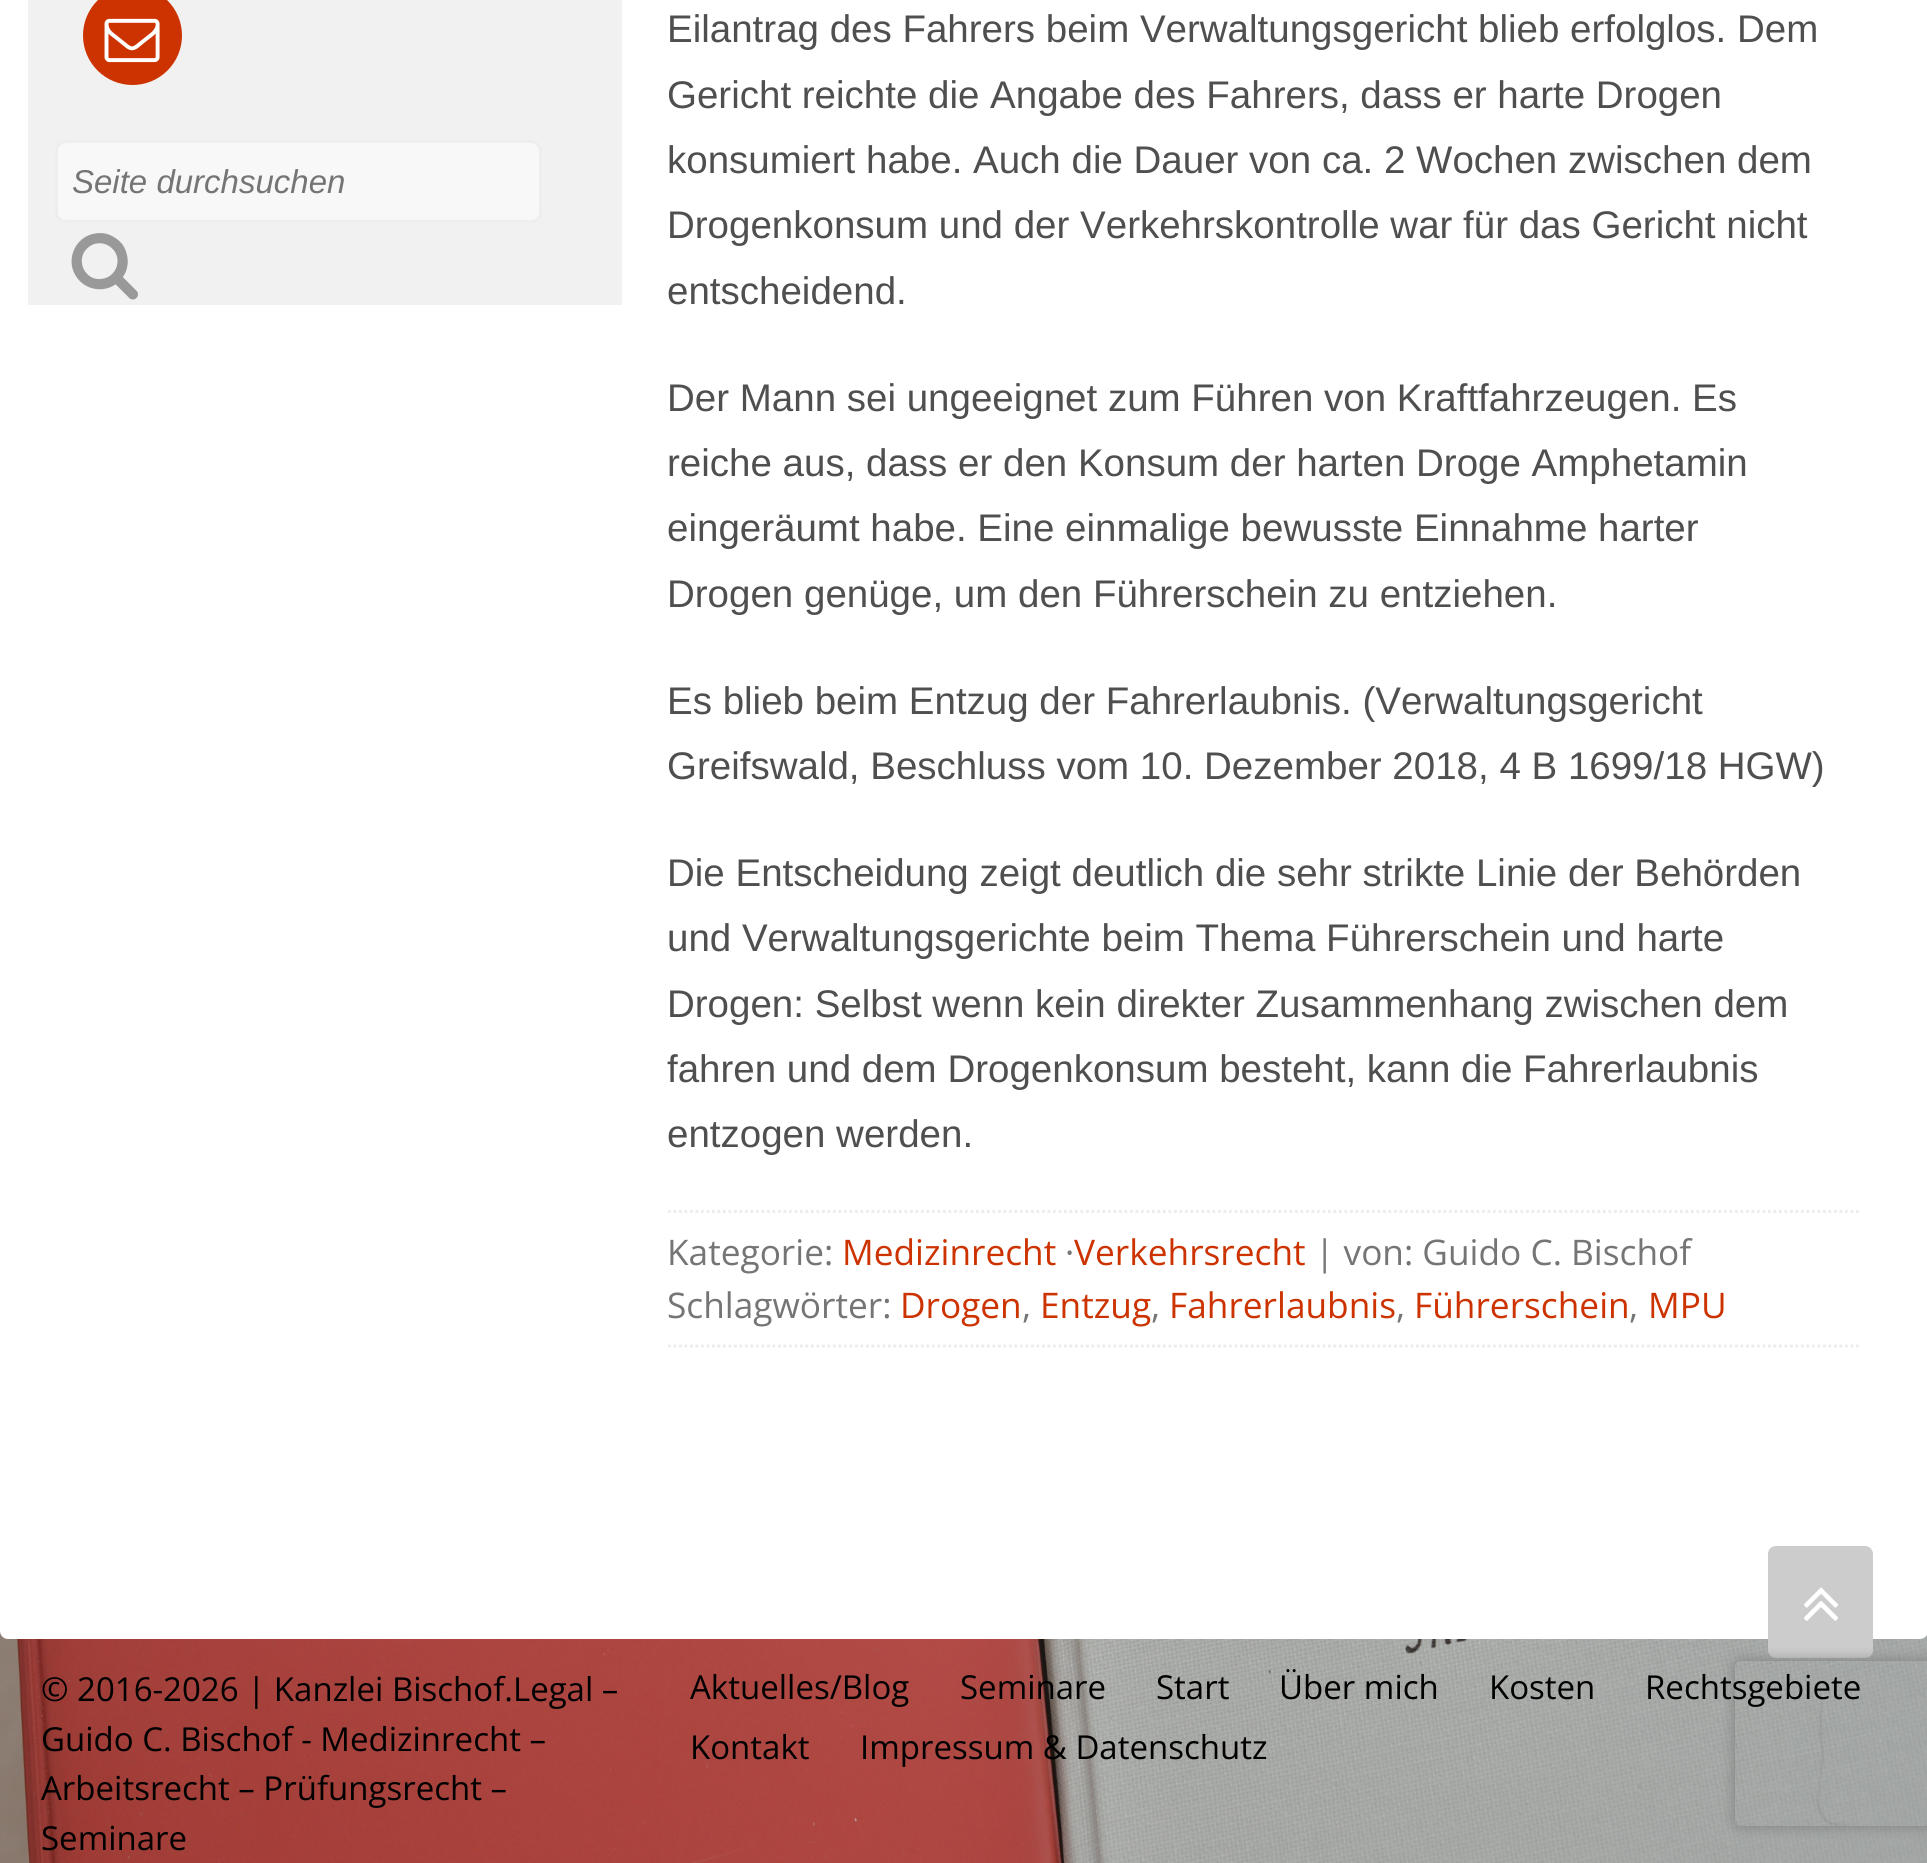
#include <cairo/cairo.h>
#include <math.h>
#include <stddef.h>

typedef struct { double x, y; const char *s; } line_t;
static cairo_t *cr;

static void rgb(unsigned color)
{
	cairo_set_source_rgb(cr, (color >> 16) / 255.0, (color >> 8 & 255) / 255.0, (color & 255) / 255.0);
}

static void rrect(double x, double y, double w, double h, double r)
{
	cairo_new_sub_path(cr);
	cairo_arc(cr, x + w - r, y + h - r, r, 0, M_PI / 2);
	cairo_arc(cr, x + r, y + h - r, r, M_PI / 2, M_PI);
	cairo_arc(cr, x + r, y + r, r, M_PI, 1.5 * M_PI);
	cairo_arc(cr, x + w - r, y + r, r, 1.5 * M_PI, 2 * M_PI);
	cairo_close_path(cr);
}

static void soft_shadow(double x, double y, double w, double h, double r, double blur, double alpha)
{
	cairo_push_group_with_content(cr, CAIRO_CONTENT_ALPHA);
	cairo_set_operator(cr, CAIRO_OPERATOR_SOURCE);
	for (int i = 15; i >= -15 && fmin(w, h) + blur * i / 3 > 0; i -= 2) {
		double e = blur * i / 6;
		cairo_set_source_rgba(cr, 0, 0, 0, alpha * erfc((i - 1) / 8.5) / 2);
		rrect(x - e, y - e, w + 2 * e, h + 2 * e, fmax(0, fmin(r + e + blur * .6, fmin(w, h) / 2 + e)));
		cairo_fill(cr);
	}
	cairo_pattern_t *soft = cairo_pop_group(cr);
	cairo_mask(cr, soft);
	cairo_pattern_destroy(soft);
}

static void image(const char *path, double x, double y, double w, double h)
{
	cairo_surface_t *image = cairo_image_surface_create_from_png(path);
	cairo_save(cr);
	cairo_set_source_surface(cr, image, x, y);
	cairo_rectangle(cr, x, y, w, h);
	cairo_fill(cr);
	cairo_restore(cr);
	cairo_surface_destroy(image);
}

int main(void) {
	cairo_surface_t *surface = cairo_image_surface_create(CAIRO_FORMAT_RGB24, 1927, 1863);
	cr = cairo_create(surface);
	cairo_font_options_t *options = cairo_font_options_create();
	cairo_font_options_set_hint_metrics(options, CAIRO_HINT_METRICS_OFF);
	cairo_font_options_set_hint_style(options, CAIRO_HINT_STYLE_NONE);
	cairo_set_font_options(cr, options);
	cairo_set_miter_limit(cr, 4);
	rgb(0xffffff);
	cairo_paint(cr);
	image("img/1.png", 0, 1631, 1927, 232);
	rgb(0xffffff);
	rrect(0, -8, 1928, 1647, 8);
	cairo_fill(cr);
	rgb(0xf1f1f1);
	cairo_rectangle(cr, 28, 0, 594, 305);
	cairo_fill(cr);
	rgb(0xcc3300);
	cairo_arc(cr, 132.5, 35.5, 49.5, 0, 2 * M_PI);
	cairo_fill(cr);
	image("img/2.png", 104, 18, 56, 45);
	rgb(0xf8f8f8);
	rrect(56.5, 141.5, 484, 80, 9.5);
	cairo_fill_preserve(cr);
	rgb(0xeeeeee);
	cairo_set_line_width(cr, 3);
	cairo_stroke(cr);
	image("img/3.png", 71, 233, 67, 67);
	cairo_new_path(cr);
	cairo_move_to(cr, 668, 1211.5);
	cairo_line_to(cr, 1859, 1211.5);
	rgb(0xebebeb);
	cairo_set_line_width(cr, 2.8);
	cairo_set_dash(cr, (double[]){2.75, 2.75}, 2, 0);
	cairo_stroke(cr);
	cairo_new_path(cr);
	cairo_move_to(cr, 668, 1346);
	cairo_line_to(cr, 1859, 1346);
	cairo_stroke(cr);
	rgb(0xcccccc);
	rrect(1768, 1546, 105, 112, 8);
	cairo_fill(cr);
	image("img/4.png", 1804, 1587, 35, 34);
	cairo_save(cr);
	cairo_set_fill_rule(cr, CAIRO_FILL_RULE_EVEN_ODD);
	cairo_new_path(cr);
	cairo_move_to(cr, 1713, 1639);
	cairo_line_to(cr, 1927, 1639);
	cairo_line_to(cr, 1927, 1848);
	cairo_line_to(cr, 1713, 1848);
	cairo_close_path(cr);
	cairo_move_to(cr, 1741, 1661);
	cairo_line_to(cr, 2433, 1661);
	cairo_curve_to(cr, 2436.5, 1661, 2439, 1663.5, 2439, 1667);
	cairo_line_to(cr, 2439, 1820);
	cairo_curve_to(cr, 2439, 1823.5, 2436.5, 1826, 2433, 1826);
	cairo_line_to(cr, 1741, 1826);
	cairo_curve_to(cr, 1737.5, 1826, 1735, 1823.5, 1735, 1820);
	cairo_line_to(cr, 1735, 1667);
	cairo_curve_to(cr, 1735, 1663.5, 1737.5, 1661, 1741, 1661);
	cairo_close_path(cr);
	cairo_clip(cr);
	rgb(0x808080);
	soft_shadow(1735, 1661, 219, 165, 6, 7, 1);
	cairo_restore(cr);
	cairo_select_font_face(cr, "Liberation Sans", CAIRO_FONT_SLANT_ITALIC, CAIRO_FONT_WEIGHT_NORMAL);
	cairo_set_font_size(cr, 33);
	rgb(0x757575);
	cairo_move_to(cr, 72, 193);
	cairo_show_text(cr, "Seite durchsuchen");
	cairo_select_font_face(cr, "Liberation Sans", CAIRO_FONT_SLANT_NORMAL, CAIRO_FONT_WEIGHT_NORMAL);
	cairo_set_font_size(cr, 38.5);
	rgb(0x4f4f4f);
	{
		static const line_t items[] = {
			{667, 42, "Eilantrag des Fahrers beim Verwaltungsgericht blieb erfolglos. Dem"},
			{667, 108, "Gericht reichte die Angabe des Fahrers, dass er harte Drogen"},
			{667, 173, "konsumiert habe. Auch die Dauer von ca. 2 Wochen zwischen dem"},
			{667, 238, "Drogenkonsum und der Verkehrskontrolle war für das Gericht nicht"},
			{667, 304, "entscheidend."},
			{667, 411, "Der Mann sei ungeeignet zum Führen von Kraftfahrzeugen. Es"},
			{667, 476, "reiche aus, dass er den Konsum der harten Droge Amphetamin"},
			{667, 541, "eingeräumt habe. Eine einmalige bewusste Einnahme harter"},
			{667, 607, "Drogen genüge, um den Führerschein zu entziehen."},
			{667, 714, "Es blieb beim Entzug der Fahrerlaubnis. (Verwaltungsgericht"},
			{667, 779, "Greifswald, Beschluss vom 10. Dezember 2018, 4 B 1699/18 HGW)"},
			{667, 886, "Die Entscheidung zeigt deutlich die sehr strikte Linie der Behörden"},
			{667, 951, "und Verwaltungsgerichte beim Thema Führerschein und harte"},
			{667, 1017, "Drogen: Selbst wenn kein direkter Zusammenhang zwischen dem"},
			{667, 1082, "fahren und dem Drogenkonsum besteht, kann die Fahrerlaubnis"},
			{667, 1147, "entzogen werden."},
		};
		for (size_t i = 0; i < sizeof items / sizeof *items; i++) {
			cairo_move_to(cr, items[i].x, items[i].y);
			cairo_show_text(cr, items[i].s);
		}
	}
	cairo_select_font_face(cr, "Open Sans", CAIRO_FONT_SLANT_NORMAL, CAIRO_FONT_WEIGHT_NORMAL);
	cairo_set_font_size(cr, 35.25);
	rgb(0x757575);
	cairo_move_to(cr, 667, 1265);
	cairo_show_text(cr, "Kategorie:");
	rgb(0xcc3300);
	cairo_move_to(cr, 842, 1265);
	cairo_show_text(cr, "Medizinrecht");
	rgb(0x757575);
	cairo_move_to(cr, 1065, 1265);
	cairo_show_text(cr, "·");
	rgb(0xcc3300);
	cairo_move_to(cr, 1074, 1265);
	cairo_show_text(cr, "Verkehrsrecht");
	rgb(0x757575);
	cairo_move_to(cr, 1315, 1265);
	cairo_show_text(cr, "| von: Guido C. Bischof");
	cairo_move_to(cr, 667, 1318);
	cairo_show_text(cr, "Schlagwörter:");
	rgb(0xcc3300);
	cairo_move_to(cr, 900, 1318);
	cairo_show_text(cr, "Drogen");
	rgb(0x757575);
	cairo_move_to(cr, 1022, 1318);
	cairo_show_text(cr, ",");
	rgb(0xcc3300);
	cairo_move_to(cr, 1040, 1318);
	cairo_show_text(cr, "Entzug");
	rgb(0x757575);
	cairo_move_to(cr, 1151, 1318);
	cairo_show_text(cr, ",");
	rgb(0xcc3300);
	cairo_move_to(cr, 1169, 1318);
	cairo_show_text(cr, "Fahrerlaubnis");
	rgb(0x757575);
	cairo_move_to(cr, 1396, 1318);
	cairo_show_text(cr, ",");
	rgb(0xcc3300);
	cairo_move_to(cr, 1414, 1318);
	cairo_show_text(cr, "Führerschein");
	rgb(0x757575);
	cairo_move_to(cr, 1629, 1318);
	cairo_show_text(cr, ",");
	rgb(0xcc3300);
	cairo_move_to(cr, 1648, 1318);
	cairo_show_text(cr, "MPU");
	cairo_set_font_size(cr, 33);
	rgb(0x000000);
	{
		static const line_t items[] = {
			{41, 1701, "© 2016-2026 | Kanzlei Bischof.Legal –"},
			{41, 1751, "Guido C. Bischof - Medizinrecht –"},
			{41, 1800, "Arbeitsrecht – Prüfungsrecht –"},
			{41, 1850, "Seminare"},
			{690, 1699, "Aktuelles/Blog"},
			{960, 1699, "Seminare"},
			{1156, 1699, "Start"},
			{1279, 1699, "Über mich"},
			{1489, 1699, "Kosten"},
			{1645, 1699, "Rechtsgebiete"},
			{690, 1759, "Kontakt"},
			{860, 1759, "Impressum & Datenschutz"},
		};
		for (size_t i = 0; i < sizeof items / sizeof *items; i++) {
			cairo_move_to(cr, items[i].x, items[i].y);
			cairo_show_text(cr, items[i].s);
		}
	}
	cairo_surface_write_to_png(surface, "page.png");
	cairo_font_options_destroy(options);
	cairo_destroy(cr);
	cairo_surface_destroy(surface);
	return 0;
}
